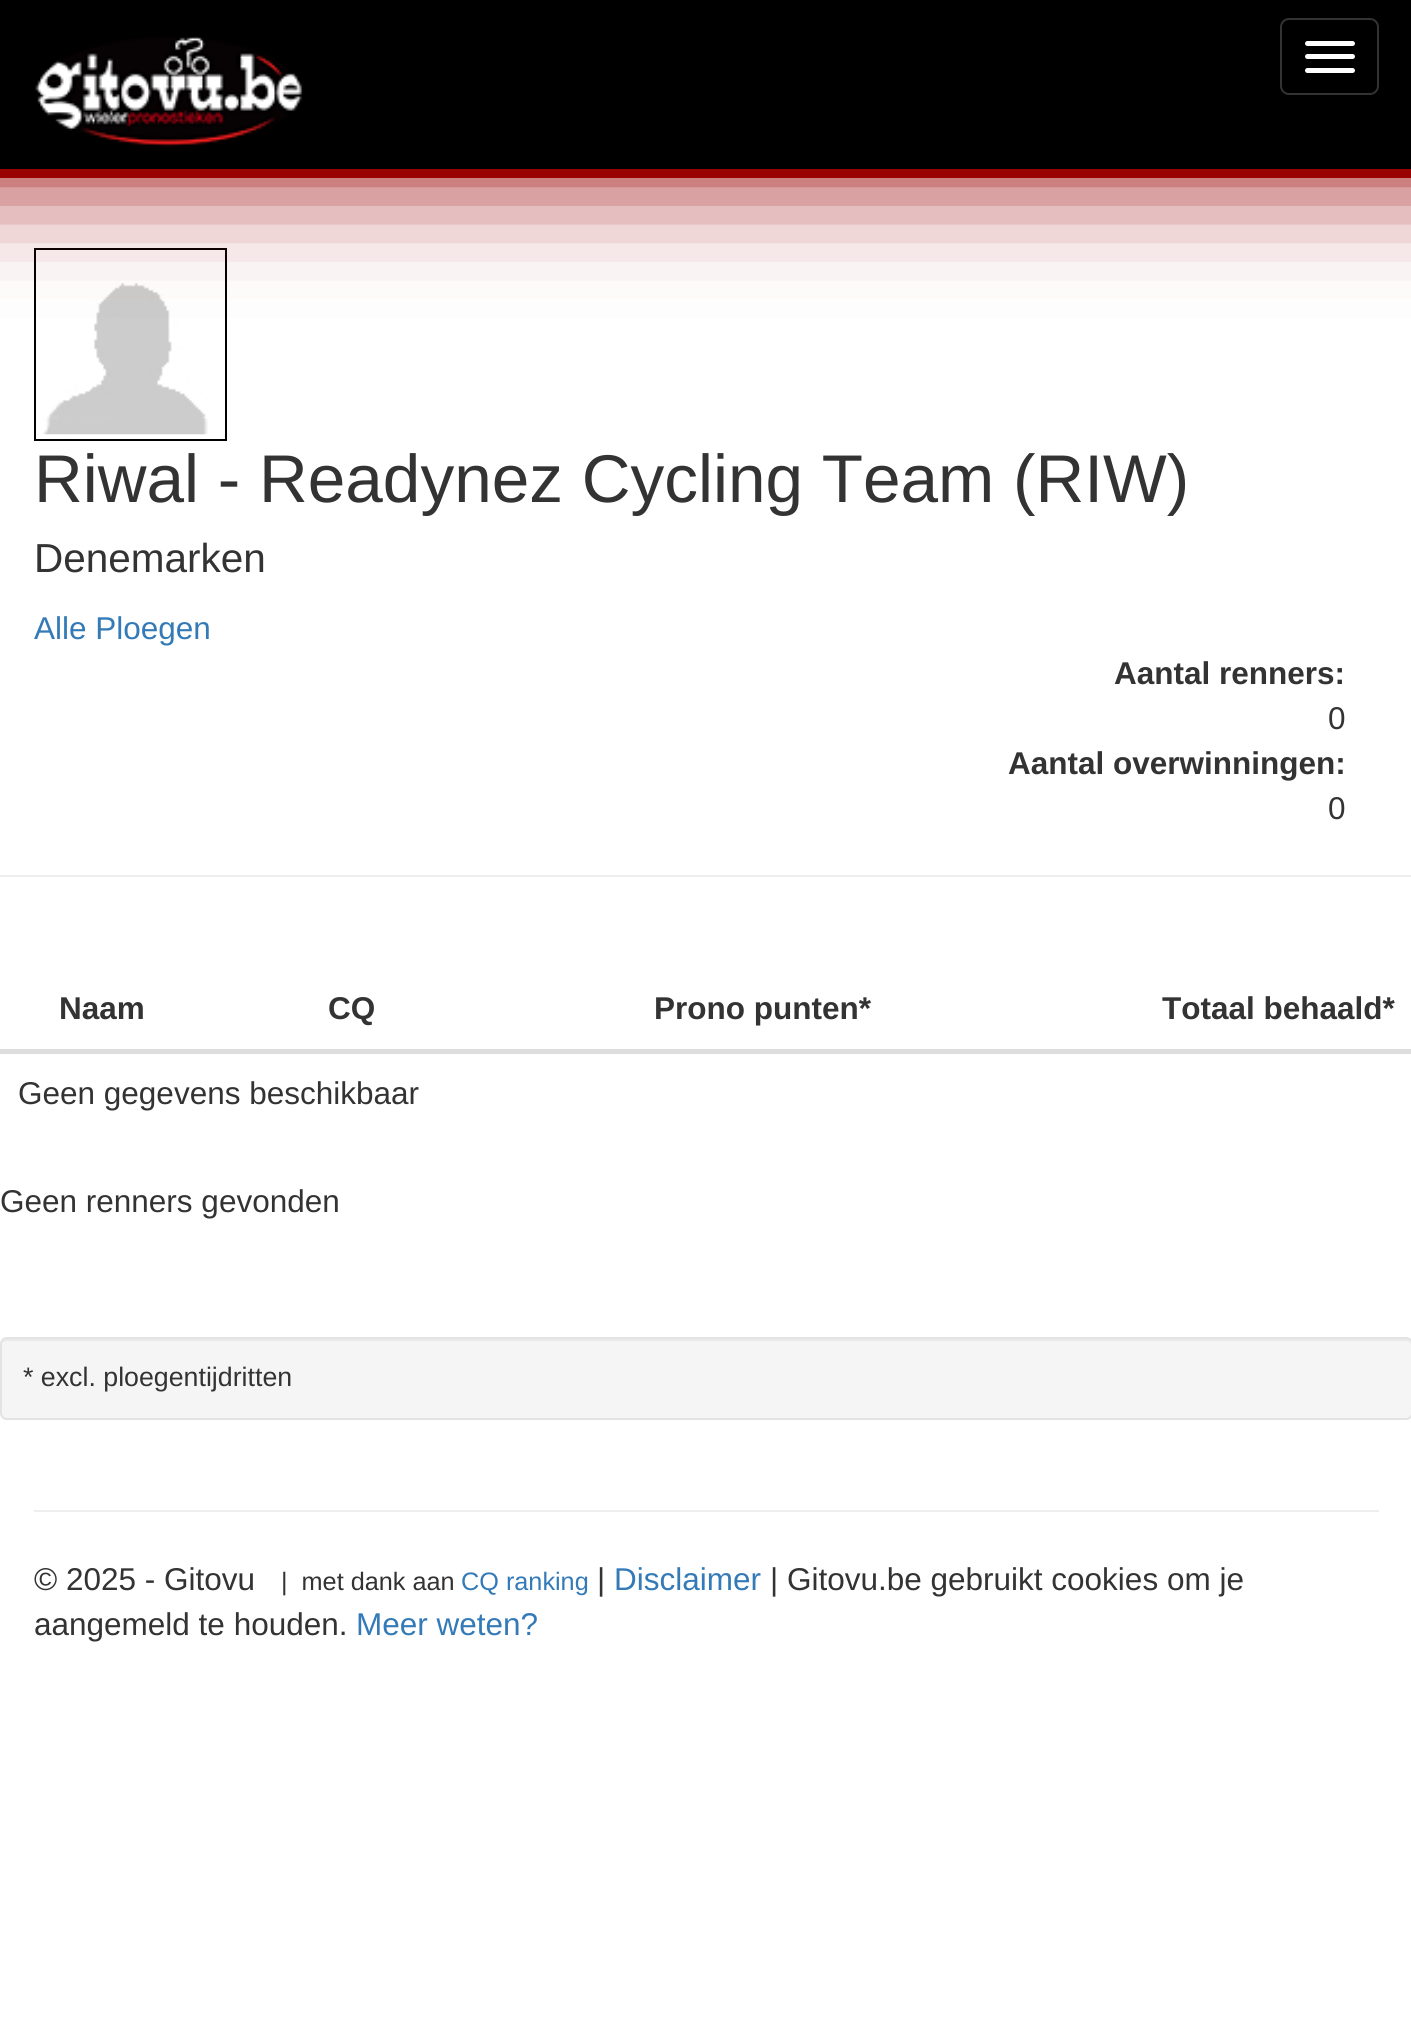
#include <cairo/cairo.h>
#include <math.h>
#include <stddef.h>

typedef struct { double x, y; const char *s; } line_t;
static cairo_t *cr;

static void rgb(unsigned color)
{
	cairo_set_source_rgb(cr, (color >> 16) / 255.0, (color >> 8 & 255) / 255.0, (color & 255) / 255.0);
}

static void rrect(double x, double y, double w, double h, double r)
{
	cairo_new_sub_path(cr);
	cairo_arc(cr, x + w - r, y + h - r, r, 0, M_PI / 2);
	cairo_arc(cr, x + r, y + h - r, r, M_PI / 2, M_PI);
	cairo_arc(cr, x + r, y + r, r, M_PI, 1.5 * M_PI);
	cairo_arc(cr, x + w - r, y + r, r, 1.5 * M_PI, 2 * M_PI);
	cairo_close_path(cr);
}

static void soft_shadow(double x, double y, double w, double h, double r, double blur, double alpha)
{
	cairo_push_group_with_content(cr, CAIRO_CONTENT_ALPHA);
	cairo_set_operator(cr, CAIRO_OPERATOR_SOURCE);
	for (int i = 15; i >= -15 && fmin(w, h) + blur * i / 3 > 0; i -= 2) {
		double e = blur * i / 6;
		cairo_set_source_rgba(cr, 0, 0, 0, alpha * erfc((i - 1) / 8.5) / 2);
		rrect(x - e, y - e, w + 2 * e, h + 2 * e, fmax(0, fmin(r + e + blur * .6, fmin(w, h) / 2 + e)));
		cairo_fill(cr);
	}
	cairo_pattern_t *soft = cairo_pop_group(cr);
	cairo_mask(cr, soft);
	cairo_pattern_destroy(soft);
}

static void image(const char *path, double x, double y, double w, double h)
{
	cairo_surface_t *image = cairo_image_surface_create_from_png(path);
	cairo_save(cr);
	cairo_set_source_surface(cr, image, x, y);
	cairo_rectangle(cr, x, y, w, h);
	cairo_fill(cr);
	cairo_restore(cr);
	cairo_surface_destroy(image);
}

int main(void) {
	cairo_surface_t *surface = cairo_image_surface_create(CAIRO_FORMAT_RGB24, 1411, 2031);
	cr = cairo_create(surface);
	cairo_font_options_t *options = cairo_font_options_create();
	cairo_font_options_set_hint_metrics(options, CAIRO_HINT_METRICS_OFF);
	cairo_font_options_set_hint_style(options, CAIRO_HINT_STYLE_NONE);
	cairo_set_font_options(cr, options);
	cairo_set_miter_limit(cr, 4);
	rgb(0xffffff);
	cairo_paint(cr);
	cairo_rectangle(cr, 35, 249, 191, 191);
	rgb(0x000000);
	cairo_stroke(cr);
	image("img/2.png", 42, 283, 166, 152);
	rgb(0x990000);
	soft_shadow(-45, -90, 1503, 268, 0, 56, 1);
	rgb(0x000000);
	cairo_rectangle(cr, 0, 0, 1411, 169);
	cairo_fill(cr);
	rgb(0x990000);
	cairo_rectangle(cr, 0, 169, 1411, 9);
	cairo_fill(cr);
	image("img/1.png", 35, 36, 268, 111);
	rrect(1281, 19, 97, 75, 8);
	rgb(0x333333);
	cairo_stroke(cr);
	rgb(0xffffff);
	rrect(1305, 41, 50, 5, 2.5);
	cairo_fill(cr);
	rrect(1305, 54, 50, 5, 2.5);
	cairo_fill(cr);
	rrect(1305, 68, 50, 5, 2.5);
	cairo_fill(cr);
	rgb(0xeeeeee);
	cairo_rectangle(cr, 0, 875, 1411, 2);
	cairo_fill(cr);
	rgb(0xdddddd);
	cairo_rectangle(cr, 0, 1049, 1411, 5);
	cairo_fill(cr);
	rgb(0xf5f5f5);
	rrect(0, 1337, 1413, 83, 7);
	cairo_fill(cr);
	rgb(0xe9e9e9);
	cairo_new_path(cr);
	cairo_move_to(cr, 7, 1341);
	cairo_line_to(cr, 1406, 1341);
	cairo_curve_to(cr, 1409, 1341, 1411, 1343, 1411, 1346);
	cairo_curve_to(cr, 1411, 1343, 1410, 1339, 1406, 1339);
	cairo_line_to(cr, 7, 1339);
	cairo_curve_to(cr, 3, 1339, 2, 1343, 2, 1346);
	cairo_curve_to(cr, 2, 1343, 4, 1341, 7, 1341);
	cairo_close_path(cr);
	cairo_fill(cr);
	rrect(1, 1338, 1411, 81, 6);
	rgb(0xe3e3e3);
	cairo_stroke(cr);
	rgb(0xeeeeee);
	cairo_rectangle(cr, 34, 1510, 1345, 2);
	cairo_fill(cr);
	cairo_select_font_face(cr, "Liberation Sans", CAIRO_FONT_SLANT_NORMAL, CAIRO_FONT_WEIGHT_NORMAL);
	cairo_set_font_size(cr, 67.5);
	rgb(0x333333);
	cairo_move_to(cr, 34, 502);
	cairo_show_text(cr, "Riwal - Readynez Cycling Team (RIW)");
	cairo_set_font_size(cr, 40.5);
	cairo_move_to(cr, 34, 572);
	cairo_show_text(cr, "Denemarken");
	cairo_set_font_size(cr, 31.5);
	rgb(0x337ab7);
	cairo_move_to(cr, 34, 639);
	cairo_show_text(cr, "Alle Ploegen");
	cairo_select_font_face(cr, "Liberation Sans", CAIRO_FONT_SLANT_NORMAL, CAIRO_FONT_WEIGHT_BOLD);
	rgb(0x333333);
	cairo_move_to(cr, 1114, 684);
	cairo_show_text(cr, "Aantal renners:");
	cairo_select_font_face(cr, "Liberation Sans", CAIRO_FONT_SLANT_NORMAL, CAIRO_FONT_WEIGHT_NORMAL);
	cairo_move_to(cr, 1328, 729);
	cairo_show_text(cr, "0");
	cairo_select_font_face(cr, "Liberation Sans", CAIRO_FONT_SLANT_NORMAL, CAIRO_FONT_WEIGHT_BOLD);
	cairo_move_to(cr, 1008, 774);
	cairo_show_text(cr, "Aantal overwinningen:");
	cairo_select_font_face(cr, "Liberation Sans", CAIRO_FONT_SLANT_NORMAL, CAIRO_FONT_WEIGHT_NORMAL);
	cairo_move_to(cr, 1328, 819);
	cairo_show_text(cr, "0");
	cairo_select_font_face(cr, "Liberation Sans", CAIRO_FONT_SLANT_NORMAL, CAIRO_FONT_WEIGHT_BOLD);
	{
		static const line_t items[] = {
			{59, 1019, "Naam"},
			{328, 1019, "CQ"},
			{654, 1019, "Prono punten*"},
			{1162, 1019, "Totaal behaald*"},
		};
		for (size_t i = 0; i < sizeof items / sizeof *items; i++) {
			cairo_move_to(cr, items[i].x, items[i].y);
			cairo_show_text(cr, items[i].s);
		}
	}
	cairo_select_font_face(cr, "Liberation Sans", CAIRO_FONT_SLANT_NORMAL, CAIRO_FONT_WEIGHT_NORMAL);
	cairo_move_to(cr, 18, 1104);
	cairo_show_text(cr, "Geen gegevens beschikbaar");
	cairo_move_to(cr, 0, 1212);
	cairo_show_text(cr, "Geen renners gevonden");
	cairo_set_font_size(cr, 26.75);
	cairo_move_to(cr, 23, 1386);
	cairo_show_text(cr, "* excl. ploegentijdritten");
	cairo_set_font_size(cr, 31.5);
	cairo_move_to(cr, 34, 1590);
	cairo_show_text(cr, "© 2025 - Gitovu");
	cairo_set_font_size(cr, 25.25);
	cairo_move_to(cr, 281, 1590);
	cairo_show_text(cr, "|  met dank aan");
	rgb(0x337ab7);
	cairo_move_to(cr, 461, 1590);
	cairo_show_text(cr, "CQ ranking");
	cairo_set_font_size(cr, 31.5);
	rgb(0x333333);
	cairo_move_to(cr, 597, 1590);
	cairo_show_text(cr, "|");
	rgb(0x337ab7);
	cairo_move_to(cr, 614, 1590);
	cairo_show_text(cr, "Disclaimer");
	rgb(0x333333);
	cairo_move_to(cr, 770, 1590);
	cairo_show_text(cr, "| Gitovu.be gebruikt cookies om je");
	cairo_move_to(cr, 34, 1635);
	cairo_show_text(cr, "aangemeld te houden.");
	rgb(0x337ab7);
	cairo_move_to(cr, 356, 1635);
	cairo_show_text(cr, "Meer weten?");
	cairo_surface_write_to_png(surface, "page.png");
	cairo_font_options_destroy(options);
	cairo_destroy(cr);
	cairo_surface_destroy(surface);
	return 0;
}
